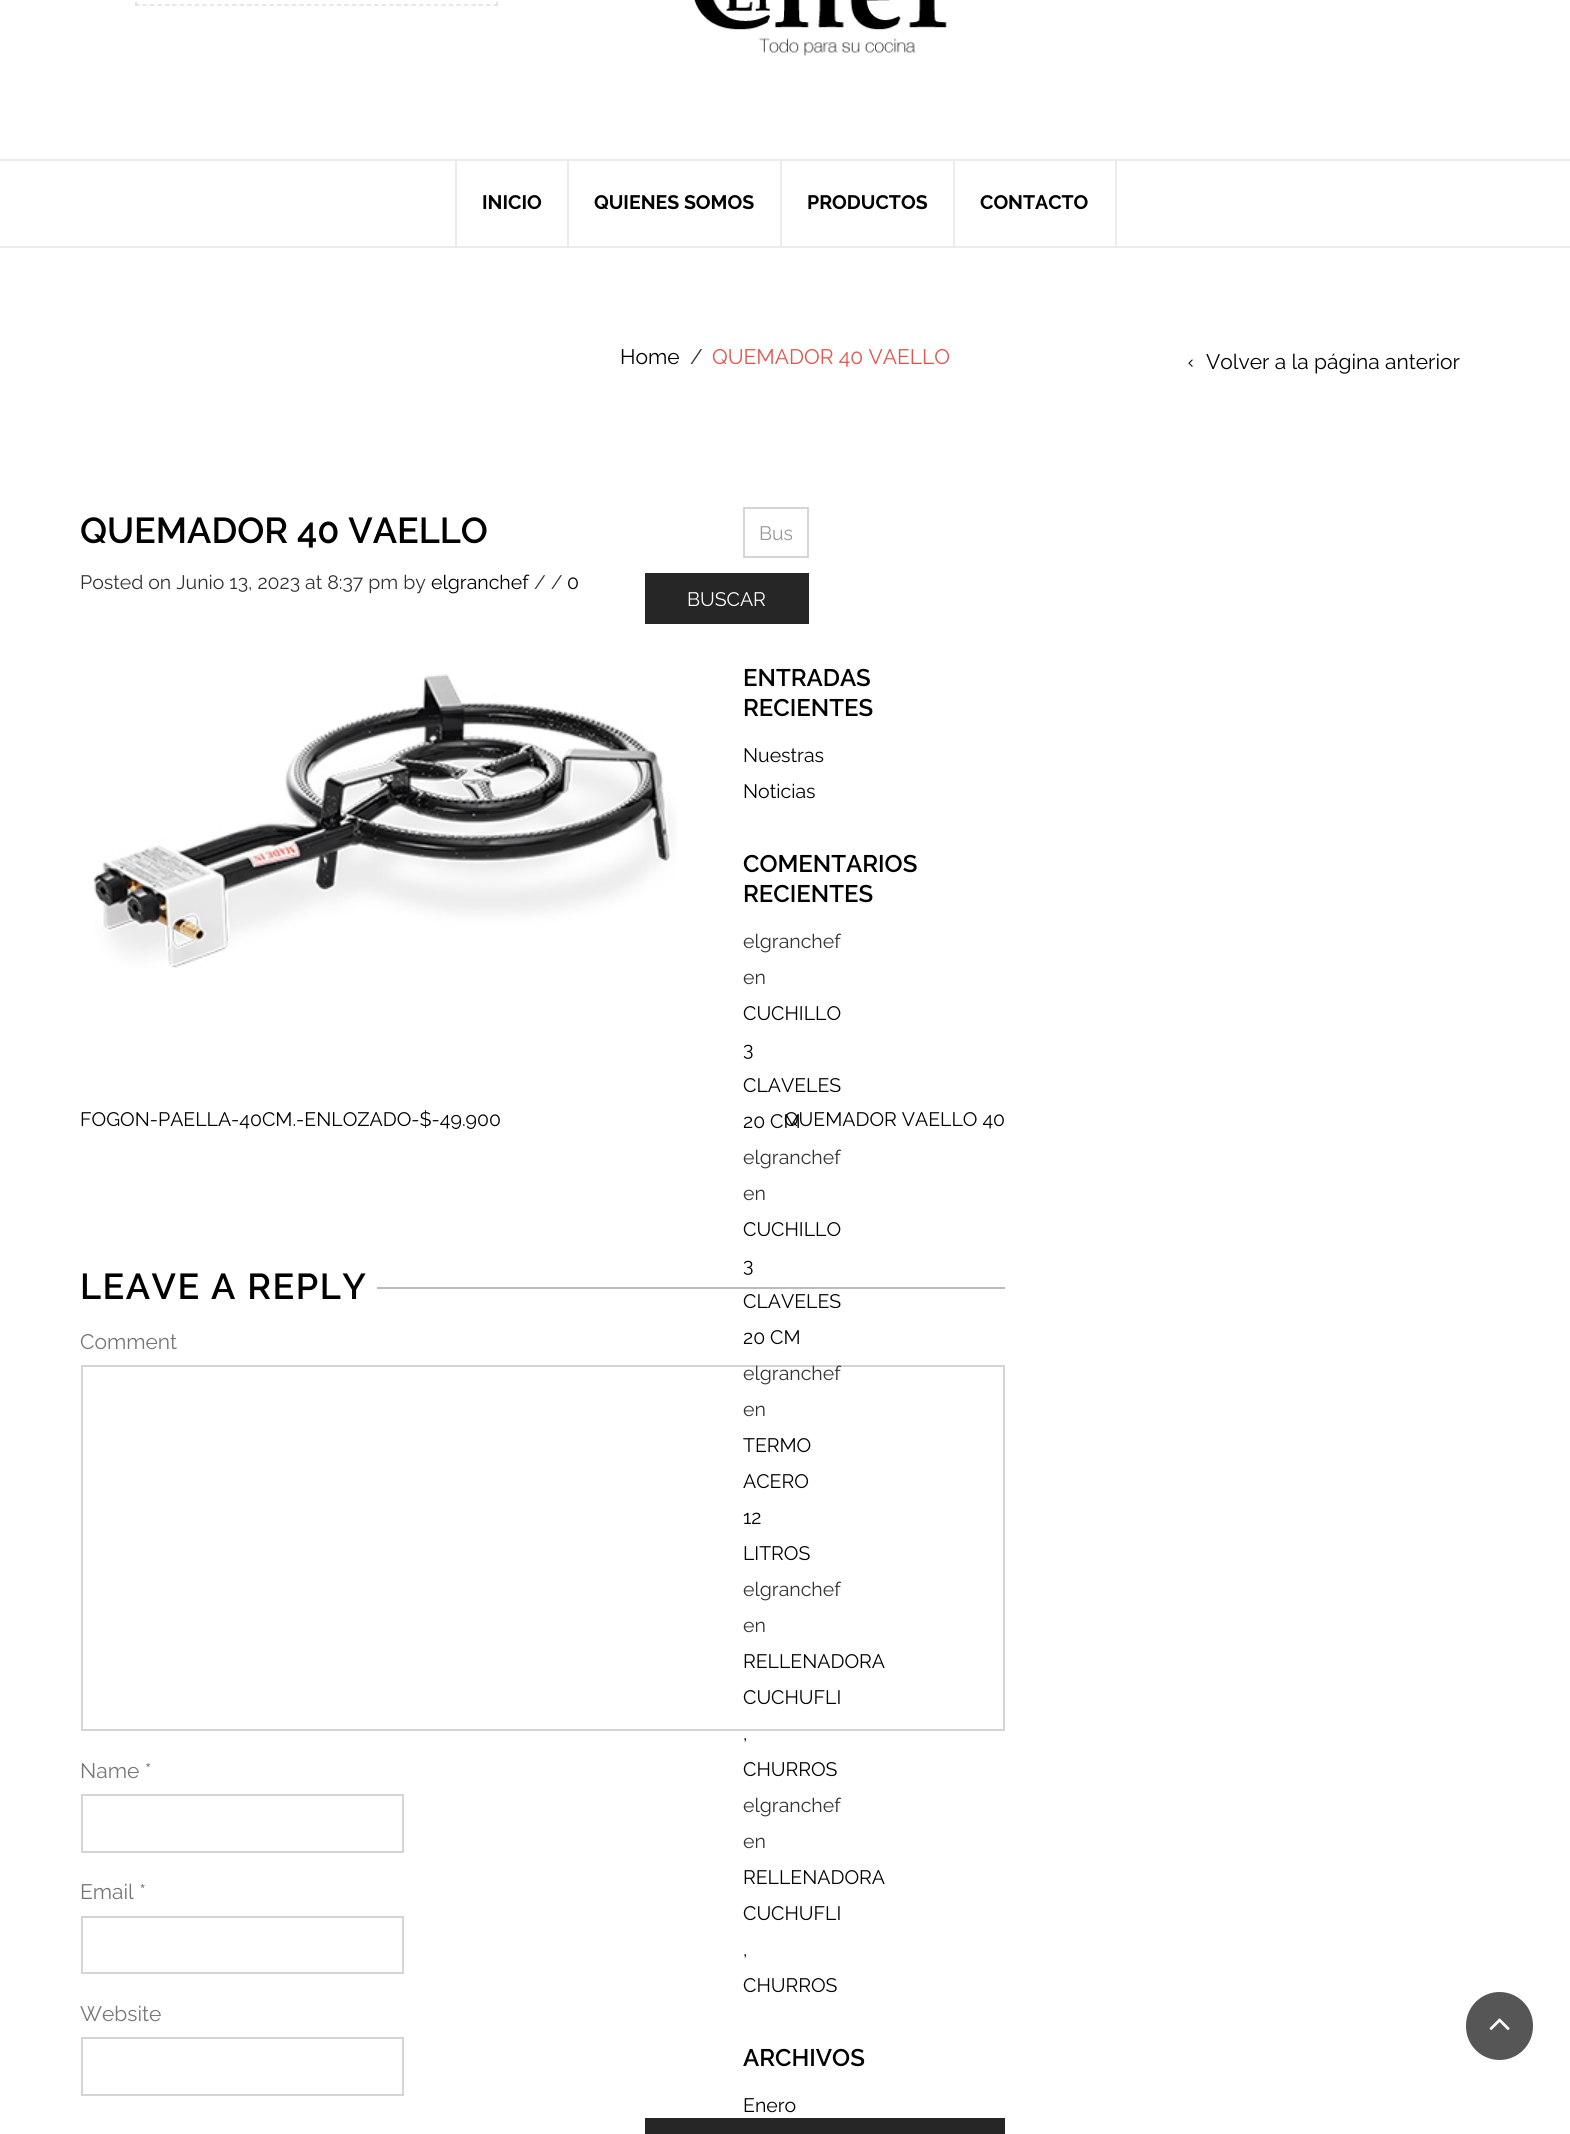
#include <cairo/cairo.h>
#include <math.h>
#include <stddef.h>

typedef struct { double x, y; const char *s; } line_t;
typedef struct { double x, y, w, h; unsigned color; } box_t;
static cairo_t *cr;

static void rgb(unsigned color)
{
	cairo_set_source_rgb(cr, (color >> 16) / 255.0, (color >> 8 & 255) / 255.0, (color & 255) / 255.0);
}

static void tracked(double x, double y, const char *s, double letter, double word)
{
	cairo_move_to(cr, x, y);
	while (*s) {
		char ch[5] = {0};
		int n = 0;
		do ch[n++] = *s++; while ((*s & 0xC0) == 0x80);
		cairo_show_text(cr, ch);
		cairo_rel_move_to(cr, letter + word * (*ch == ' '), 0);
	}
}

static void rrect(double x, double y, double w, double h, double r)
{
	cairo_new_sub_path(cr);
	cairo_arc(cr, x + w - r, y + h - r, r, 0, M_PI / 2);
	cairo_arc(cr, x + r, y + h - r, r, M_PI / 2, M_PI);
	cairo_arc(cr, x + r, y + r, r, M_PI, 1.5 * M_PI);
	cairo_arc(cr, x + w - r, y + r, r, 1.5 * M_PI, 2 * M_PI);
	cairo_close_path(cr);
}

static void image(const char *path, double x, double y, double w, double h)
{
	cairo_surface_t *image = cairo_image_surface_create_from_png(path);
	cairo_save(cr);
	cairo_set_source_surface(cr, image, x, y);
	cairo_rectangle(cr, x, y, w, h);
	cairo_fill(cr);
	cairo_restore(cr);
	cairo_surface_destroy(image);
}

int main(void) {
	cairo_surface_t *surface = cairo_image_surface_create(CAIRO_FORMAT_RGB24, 1570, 2134);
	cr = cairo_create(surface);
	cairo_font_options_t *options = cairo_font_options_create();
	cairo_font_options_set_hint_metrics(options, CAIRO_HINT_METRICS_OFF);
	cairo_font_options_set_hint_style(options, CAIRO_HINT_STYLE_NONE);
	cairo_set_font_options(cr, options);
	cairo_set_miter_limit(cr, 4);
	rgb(0xffffff);
	cairo_paint(cr);
	cairo_new_path(cr);
	cairo_move_to(cr, 497, -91.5);
	cairo_line_to(cr, 497, 6);
	rgb(0xdfdfdf);
	cairo_set_line_width(cr, 1.5);
	cairo_set_dash(cr, (double[]){4.5, 3.25}, 2, 0);
	cairo_stroke(cr);
	cairo_new_path(cr);
	cairo_move_to(cr, 135, 5);
	cairo_line_to(cr, 498, 5);
	cairo_set_dash(cr, (double[]){4.5, 2.97}, 2, 0);
	cairo_stroke(cr);
	cairo_new_path(cr);
	cairo_move_to(cr, 136, -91.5);
	cairo_line_to(cr, 136, 6);
	cairo_set_dash(cr, (double[]){4.5, 3.25}, 2, 0);
	cairo_stroke(cr);
	image("img/1.png", 694, 0, 253, 56);
	{
		static const box_t items[] = {
			{0, 159, 1570, 2, 0xebebeb},
			{0, 246, 1570, 2, 0xebebeb},
			{455, 161, 2, 85, 0xebebeb},
			{567, 161, 2, 85, 0xebebeb},
			{780, 161, 2, 85, 0xebebeb},
			{1115, 161, 2, 85, 0xebebeb},
			{953, 161, 2, 85, 0xebebeb},
		};
		for (size_t i = 0; i < sizeof items / sizeof *items; i++) {
			rgb(items[i].color);
			cairo_rectangle(cr, items[i].x, items[i].y, items[i].w, items[i].h);
			cairo_fill(cr);
		}
	}
	image("img/2.png", 1188, 359, 5, 8);
	image("img/3.png", 93, 674, 584, 294);
	rgb(0xbbbbbb);
	cairo_rectangle(cr, 377, 1287, 628, 2);
	cairo_fill(cr);
	cairo_rectangle(cr, 82, 1366, 922, 364);
	rgb(0xd5d5d5);
	cairo_set_line_width(cr, 2);
	cairo_set_dash(cr, NULL, 0, 0);
	cairo_stroke(cr);
	cairo_rectangle(cr, 82, 1795, 321, 57);
	cairo_stroke(cr);
	cairo_rectangle(cr, 82, 1917, 321, 56);
	cairo_stroke(cr);
	cairo_rectangle(cr, 82, 2038, 321, 57);
	cairo_stroke(cr);
	rgb(0x262626);
	cairo_rectangle(cr, 645, 2118, 360, 16);
	cairo_fill(cr);
	cairo_rectangle(cr, 744, 508, 64, 49);
	rgb(0xd5d5d5);
	cairo_stroke(cr);
	rgb(0x262626);
	cairo_rectangle(cr, 645, 573, 164, 51);
	cairo_fill(cr);
	rgb(0x565656);
	rrect(1467.5, 1993.5, 64, 65, 32);
	cairo_fill_preserve(cr);
	cairo_set_line_width(cr, 3);
	cairo_stroke(cr);
	image("img/4.png", 1489, 2018, 21, 12);
	cairo_select_font_face(cr, "Raleway", CAIRO_FONT_SLANT_NORMAL, CAIRO_FONT_WEIGHT_BOLD);
	cairo_set_font_size(cr, 19.5);
	rgb(0x000000);
	{
		static const line_t items[] = {
			{482, 209, "INICIO"},
			{594, 209, "QUIENES SOMOS"},
			{807, 209, "PRODUCTOS"},
			{980, 209, "CONTACTO"},
		};
		for (size_t i = 0; i < sizeof items / sizeof *items; i++) {
			cairo_move_to(cr, items[i].x, items[i].y);
			cairo_show_text(cr, items[i].s);
		}
	}
	cairo_select_font_face(cr, "Raleway", CAIRO_FONT_SLANT_NORMAL, CAIRO_FONT_WEIGHT_NORMAL);
	cairo_set_font_size(cr, 21);
	cairo_move_to(cr, 620, 364);
	cairo_show_text(cr, "Home");
	rgb(0x333333);
	cairo_move_to(cr, 690, 364);
	cairo_show_text(cr, "/");
	rgb(0xe5534c);
	cairo_move_to(cr, 712, 364);
	cairo_show_text(cr, "QUEMADOR 40 VAELLO");
	rgb(0x000000);
	cairo_move_to(cr, 1206, 369);
	cairo_show_text(cr, "Volver a la página anterior");
	cairo_select_font_face(cr, "Raleway SemiBold", CAIRO_FONT_SLANT_NORMAL, CAIRO_FONT_WEIGHT_NORMAL);
	cairo_set_font_size(cr, 36);
	cairo_move_to(cr, 80, 543);
	cairo_show_text(cr, "QUEMADOR 40 VAELLO");
	cairo_select_font_face(cr, "Raleway", CAIRO_FONT_SLANT_NORMAL, CAIRO_FONT_WEIGHT_NORMAL);
	cairo_set_font_size(cr, 19.5);
	rgb(0x333333);
	cairo_move_to(cr, 80, 589);
	cairo_show_text(cr, "Posted on Junio 13, 2023 at 8:37 pm by");
	rgb(0x000000);
	cairo_move_to(cr, 431, 589);
	cairo_show_text(cr, "elgranchef");
	rgb(0x333333);
	cairo_move_to(cr, 534, 589);
	cairo_show_text(cr, "/ /");
	rgb(0x000000);
	{
		static const line_t items[] = {
			{567, 589, "0"},
			{80, 1126, "FOGON-PAELLA-40CM.-ENLOZADO-$-49.900"},
			{784, 1126, "QUEMADOR VAELLO 40"},
		};
		for (size_t i = 0; i < sizeof items / sizeof *items; i++) {
			cairo_move_to(cr, items[i].x, items[i].y);
			cairo_show_text(cr, items[i].s);
		}
	}
	cairo_select_font_face(cr, "Raleway SemiBold", CAIRO_FONT_SLANT_NORMAL, CAIRO_FONT_WEIGHT_NORMAL);
	cairo_set_font_size(cr, 36);
	tracked(80, 1299, "LEAVE A REPLY", 1.5, 0);
	cairo_select_font_face(cr, "Raleway", CAIRO_FONT_SLANT_NORMAL, CAIRO_FONT_WEIGHT_NORMAL);
	cairo_set_font_size(cr, 21);
	rgb(0x767676);
	{
		static const line_t items[] = {
			{80, 1349, "Comment"},
			{80, 1778, "Name *"},
			{80, 1899, "Email *"},
			{80, 2021, "Website"},
		};
		for (size_t i = 0; i < sizeof items / sizeof *items; i++) {
			cairo_move_to(cr, items[i].x, items[i].y);
			cairo_show_text(cr, items[i].s);
		}
	}
	cairo_save(cr);
	cairo_rectangle(cr, 759, 522, 33, 23);
	cairo_clip(cr);
	cairo_set_font_size(cr, 19.5);
	rgb(0x999999);
	cairo_move_to(cr, 759, 540);
	cairo_show_text(cr, "Bus");
	cairo_restore(cr);
	cairo_set_font_size(cr, 19.5);
	rgb(0xffffff);
	cairo_move_to(cr, 687, 606);
	cairo_show_text(cr, "BUSCAR");
	cairo_select_font_face(cr, "Raleway SemiBold", CAIRO_FONT_SLANT_NORMAL, CAIRO_FONT_WEIGHT_NORMAL);
	cairo_set_font_size(cr, 24);
	rgb(0x000000);
	cairo_move_to(cr, 743, 686);
	cairo_show_text(cr, "ENTRADAS");
	cairo_move_to(cr, 743, 716);
	cairo_show_text(cr, "RECIENTES");
	cairo_select_font_face(cr, "Raleway", CAIRO_FONT_SLANT_NORMAL, CAIRO_FONT_WEIGHT_NORMAL);
	cairo_set_font_size(cr, 19.5);
	cairo_move_to(cr, 743, 762);
	cairo_show_text(cr, "Nuestras");
	cairo_move_to(cr, 743, 798);
	cairo_show_text(cr, "Noticias");
	cairo_select_font_face(cr, "Raleway SemiBold", CAIRO_FONT_SLANT_NORMAL, CAIRO_FONT_WEIGHT_NORMAL);
	cairo_set_font_size(cr, 24);
	cairo_move_to(cr, 743, 872);
	cairo_show_text(cr, "COMENTARIOS");
	cairo_move_to(cr, 743, 902);
	cairo_show_text(cr, "RECIENTES");
	cairo_select_font_face(cr, "Raleway", CAIRO_FONT_SLANT_NORMAL, CAIRO_FONT_WEIGHT_NORMAL);
	cairo_set_font_size(cr, 19.5);
	rgb(0x333333);
	cairo_move_to(cr, 743, 948);
	cairo_show_text(cr, "elgranchef");
	cairo_move_to(cr, 743, 984);
	cairo_show_text(cr, "en");
	rgb(0x000000);
	{
		static const line_t items[] = {
			{743, 1020, "CUCHILLO"},
			{743, 1056, "3"},
			{743, 1092, "CLAVELES"},
			{743, 1128, "20 CM"},
		};
		for (size_t i = 0; i < sizeof items / sizeof *items; i++) {
			cairo_move_to(cr, items[i].x, items[i].y);
			cairo_show_text(cr, items[i].s);
		}
	}
	rgb(0x333333);
	cairo_move_to(cr, 743, 1164);
	cairo_show_text(cr, "elgranchef");
	cairo_move_to(cr, 743, 1200);
	cairo_show_text(cr, "en");
	rgb(0x000000);
	{
		static const line_t items[] = {
			{743, 1236, "CUCHILLO"},
			{743, 1272, "3"},
			{743, 1308, "CLAVELES"},
			{743, 1344, "20 CM"},
		};
		for (size_t i = 0; i < sizeof items / sizeof *items; i++) {
			cairo_move_to(cr, items[i].x, items[i].y);
			cairo_show_text(cr, items[i].s);
		}
	}
	rgb(0x333333);
	cairo_move_to(cr, 743, 1380);
	cairo_show_text(cr, "elgranchef");
	cairo_move_to(cr, 743, 1416);
	cairo_show_text(cr, "en");
	rgb(0x000000);
	{
		static const line_t items[] = {
			{743, 1452, "TERMO"},
			{743, 1488, "ACERO"},
			{743, 1524, "12"},
			{743, 1560, "LITROS"},
		};
		for (size_t i = 0; i < sizeof items / sizeof *items; i++) {
			cairo_move_to(cr, items[i].x, items[i].y);
			cairo_show_text(cr, items[i].s);
		}
	}
	rgb(0x333333);
	cairo_move_to(cr, 743, 1596);
	cairo_show_text(cr, "elgranchef");
	cairo_move_to(cr, 743, 1632);
	cairo_show_text(cr, "en");
	rgb(0x000000);
	{
		static const line_t items[] = {
			{743, 1668, "RELLENADORA"},
			{743, 1704, "CUCHUFLI"},
			{743, 1740, ","},
			{743, 1776, "CHURROS"},
		};
		for (size_t i = 0; i < sizeof items / sizeof *items; i++) {
			cairo_move_to(cr, items[i].x, items[i].y);
			cairo_show_text(cr, items[i].s);
		}
	}
	rgb(0x333333);
	cairo_move_to(cr, 743, 1812);
	cairo_show_text(cr, "elgranchef");
	cairo_move_to(cr, 743, 1848);
	cairo_show_text(cr, "en");
	rgb(0x000000);
	{
		static const line_t items[] = {
			{743, 1884, "RELLENADORA"},
			{743, 1920, "CUCHUFLI"},
			{743, 1956, ","},
			{743, 1992, "CHURROS"},
		};
		for (size_t i = 0; i < sizeof items / sizeof *items; i++) {
			cairo_move_to(cr, items[i].x, items[i].y);
			cairo_show_text(cr, items[i].s);
		}
	}
	cairo_select_font_face(cr, "Raleway SemiBold", CAIRO_FONT_SLANT_NORMAL, CAIRO_FONT_WEIGHT_NORMAL);
	cairo_set_font_size(cr, 24);
	cairo_move_to(cr, 743, 2066);
	cairo_show_text(cr, "ARCHIVOS");
	cairo_select_font_face(cr, "Raleway", CAIRO_FONT_SLANT_NORMAL, CAIRO_FONT_WEIGHT_NORMAL);
	cairo_set_font_size(cr, 19.5);
	cairo_move_to(cr, 743, 2112);
	cairo_show_text(cr, "Enero");
	cairo_surface_write_to_png(surface, "page.png");
	cairo_font_options_destroy(options);
	cairo_destroy(cr);
	cairo_surface_destroy(surface);
	return 0;
}
